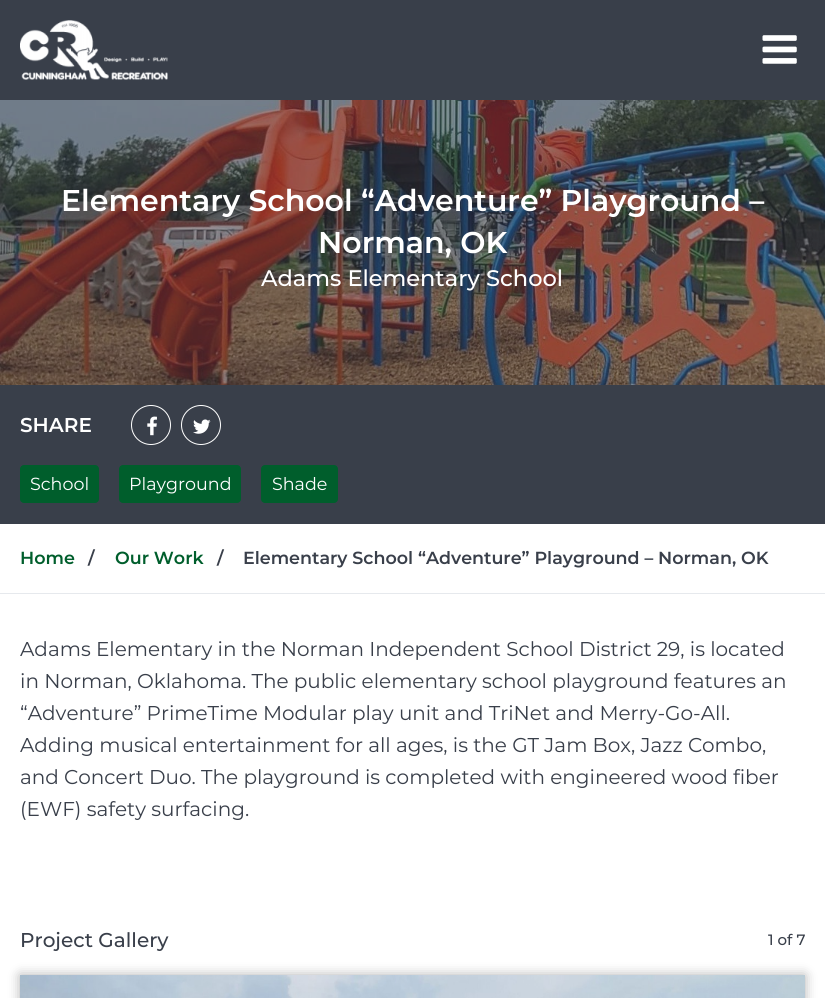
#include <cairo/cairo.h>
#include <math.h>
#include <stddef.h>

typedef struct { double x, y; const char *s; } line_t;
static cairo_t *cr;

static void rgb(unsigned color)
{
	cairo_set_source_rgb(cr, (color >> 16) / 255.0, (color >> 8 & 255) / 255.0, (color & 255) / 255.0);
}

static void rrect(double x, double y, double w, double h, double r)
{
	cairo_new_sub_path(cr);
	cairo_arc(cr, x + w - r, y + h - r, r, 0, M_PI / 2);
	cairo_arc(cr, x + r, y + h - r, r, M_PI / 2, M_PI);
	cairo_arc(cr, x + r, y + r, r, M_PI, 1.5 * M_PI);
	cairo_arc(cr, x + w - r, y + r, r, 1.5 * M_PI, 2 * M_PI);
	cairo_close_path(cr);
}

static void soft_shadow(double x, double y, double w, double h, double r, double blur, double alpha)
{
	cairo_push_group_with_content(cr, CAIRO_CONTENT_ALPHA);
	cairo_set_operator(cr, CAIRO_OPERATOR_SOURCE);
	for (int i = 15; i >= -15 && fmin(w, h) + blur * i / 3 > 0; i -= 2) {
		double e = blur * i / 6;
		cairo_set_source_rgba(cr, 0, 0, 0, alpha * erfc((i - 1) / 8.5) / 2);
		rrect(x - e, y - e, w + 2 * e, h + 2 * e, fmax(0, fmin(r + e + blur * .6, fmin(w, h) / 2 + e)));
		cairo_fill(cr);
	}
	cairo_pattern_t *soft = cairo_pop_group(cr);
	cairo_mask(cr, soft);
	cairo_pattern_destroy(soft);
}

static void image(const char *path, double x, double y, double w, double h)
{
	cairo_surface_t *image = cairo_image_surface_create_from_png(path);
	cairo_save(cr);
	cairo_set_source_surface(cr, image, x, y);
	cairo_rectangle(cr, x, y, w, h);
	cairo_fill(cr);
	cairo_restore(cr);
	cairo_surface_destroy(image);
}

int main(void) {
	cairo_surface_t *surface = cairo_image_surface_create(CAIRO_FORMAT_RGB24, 825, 998);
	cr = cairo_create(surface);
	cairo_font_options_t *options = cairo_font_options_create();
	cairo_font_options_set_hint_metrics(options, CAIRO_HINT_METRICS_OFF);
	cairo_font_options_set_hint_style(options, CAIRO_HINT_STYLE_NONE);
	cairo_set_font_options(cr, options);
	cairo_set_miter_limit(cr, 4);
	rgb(0xffffff);
	cairo_paint(cr);
	rgb(0x393f4a);
	cairo_rectangle(cr, 0, 0, 825, 100);
	cairo_fill(cr);
	image("img/1.png", 20, 20, 148, 60);
	image("img/2.png", 762, 35, 35, 29);
	image("img/3.png", 0, 100, 825, 285);
	cairo_rectangle(cr, 0, 385, 825, 139);
	cairo_fill(cr);
	cairo_arc(cr, 151, 425, 19.5, 0, 2 * M_PI);
	rgb(0xffffff);
	cairo_set_line_width(cr, 1);
	cairo_stroke(cr);
	image("img/4.png", 147, 416, 10, 20);
	cairo_arc(cr, 201, 425, 19.5, 0, 2 * M_PI);
	cairo_stroke(cr);
	image("img/5.png", 193, 419, 18, 15);
	rgb(0x005e2c);
	rrect(20, 465, 79, 38, 4);
	cairo_fill(cr);
	rrect(119, 465, 122, 38, 4);
	cairo_fill(cr);
	rrect(261, 465, 77, 38, 4);
	cairo_fill(cr);
	rgb(0xe6e9ed);
	cairo_rectangle(cr, 0, 593, 825, 1);
	cairo_fill(cr);
	rgb(0x000000);
	soft_shadow(20, 975, 785, 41, 0, 6, 0.3);
	image("img/6.png", 20, 975, 785, 23);
	cairo_select_font_face(cr, "Montserrat SemiBold", CAIRO_FONT_SLANT_NORMAL, CAIRO_FONT_WEIGHT_NORMAL);
	cairo_set_font_size(cr, 30);
	rgb(0xffffff);
	cairo_move_to(cr, 61, 211);
	cairo_show_text(cr, "Elementary School “Adventure” Playground –");
	cairo_move_to(cr, 318, 253);
	cairo_show_text(cr, "Norman, OK");
	cairo_select_font_face(cr, "Montserrat Medium", CAIRO_FONT_SLANT_NORMAL, CAIRO_FONT_WEIGHT_NORMAL);
	cairo_set_font_size(cr, 22.5);
	cairo_move_to(cr, 261, 286);
	cairo_show_text(cr, "Adams Elementary School");
	cairo_select_font_face(cr, "Montserrat SemiBold", CAIRO_FONT_SLANT_NORMAL, CAIRO_FONT_WEIGHT_NORMAL);
	cairo_set_font_size(cr, 20);
	cairo_move_to(cr, 20, 432);
	cairo_show_text(cr, "SHARE");
	cairo_select_font_face(cr, "Montserrat", CAIRO_FONT_SLANT_NORMAL, CAIRO_FONT_WEIGHT_NORMAL);
	cairo_set_font_size(cr, 17.5);
	{
		static const line_t items[] = {
			{30, 490, "School"},
			{129, 490, "Playground"},
			{272, 490, "Shade"},
		};
		for (size_t i = 0; i < sizeof items / sizeof *items; i++) {
			cairo_move_to(cr, items[i].x, items[i].y);
			cairo_show_text(cr, items[i].s);
		}
	}
	cairo_select_font_face(cr, "Montserrat SemiBold", CAIRO_FONT_SLANT_NORMAL, CAIRO_FONT_WEIGHT_NORMAL);
	rgb(0x005e2c);
	cairo_move_to(cr, 20, 564);
	cairo_show_text(cr, "Home");
	rgb(0x393f4a);
	cairo_move_to(cr, 88, 564);
	cairo_show_text(cr, "/");
	rgb(0x005e2c);
	cairo_move_to(cr, 115, 564);
	cairo_show_text(cr, "Our Work");
	rgb(0x393f4a);
	cairo_move_to(cr, 217, 564);
	cairo_show_text(cr, "/");
	cairo_move_to(cr, 243, 564);
	cairo_show_text(cr, "Elementary School “Adventure” Playground – Norman, OK");
	cairo_select_font_face(cr, "Montserrat", CAIRO_FONT_SLANT_NORMAL, CAIRO_FONT_WEIGHT_NORMAL);
	cairo_set_font_size(cr, 20);
	{
		static const line_t items[] = {
			{20, 656, "Adams Elementary in the Norman Independent School District 29, is located"},
			{20, 688, "in Norman, Oklahoma. The public elementary school playground features an"},
			{20, 720, "“Adventure” PrimeTime Modular play unit and TriNet and Merry-Go-All."},
			{20, 752, "Adding musical entertainment for all ages, is the GT Jam Box, Jazz Combo,"},
			{20, 784, "and Concert Duo. The playground is completed with engineered wood fiber"},
			{20, 816, "(EWF) safety surfacing."},
		};
		for (size_t i = 0; i < sizeof items / sizeof *items; i++) {
			cairo_move_to(cr, items[i].x, items[i].y);
			cairo_show_text(cr, items[i].s);
		}
	}
	cairo_select_font_face(cr, "Montserrat Medium", CAIRO_FONT_SLANT_NORMAL, CAIRO_FONT_WEIGHT_NORMAL);
	cairo_move_to(cr, 20, 947);
	cairo_show_text(cr, "Project Gallery");
	cairo_set_font_size(cr, 15);
	cairo_move_to(cr, 768, 945);
	cairo_show_text(cr, "1 of 7");
	cairo_surface_write_to_png(surface, "page.png");
	cairo_font_options_destroy(options);
	cairo_destroy(cr);
	cairo_surface_destroy(surface);
	return 0;
}
